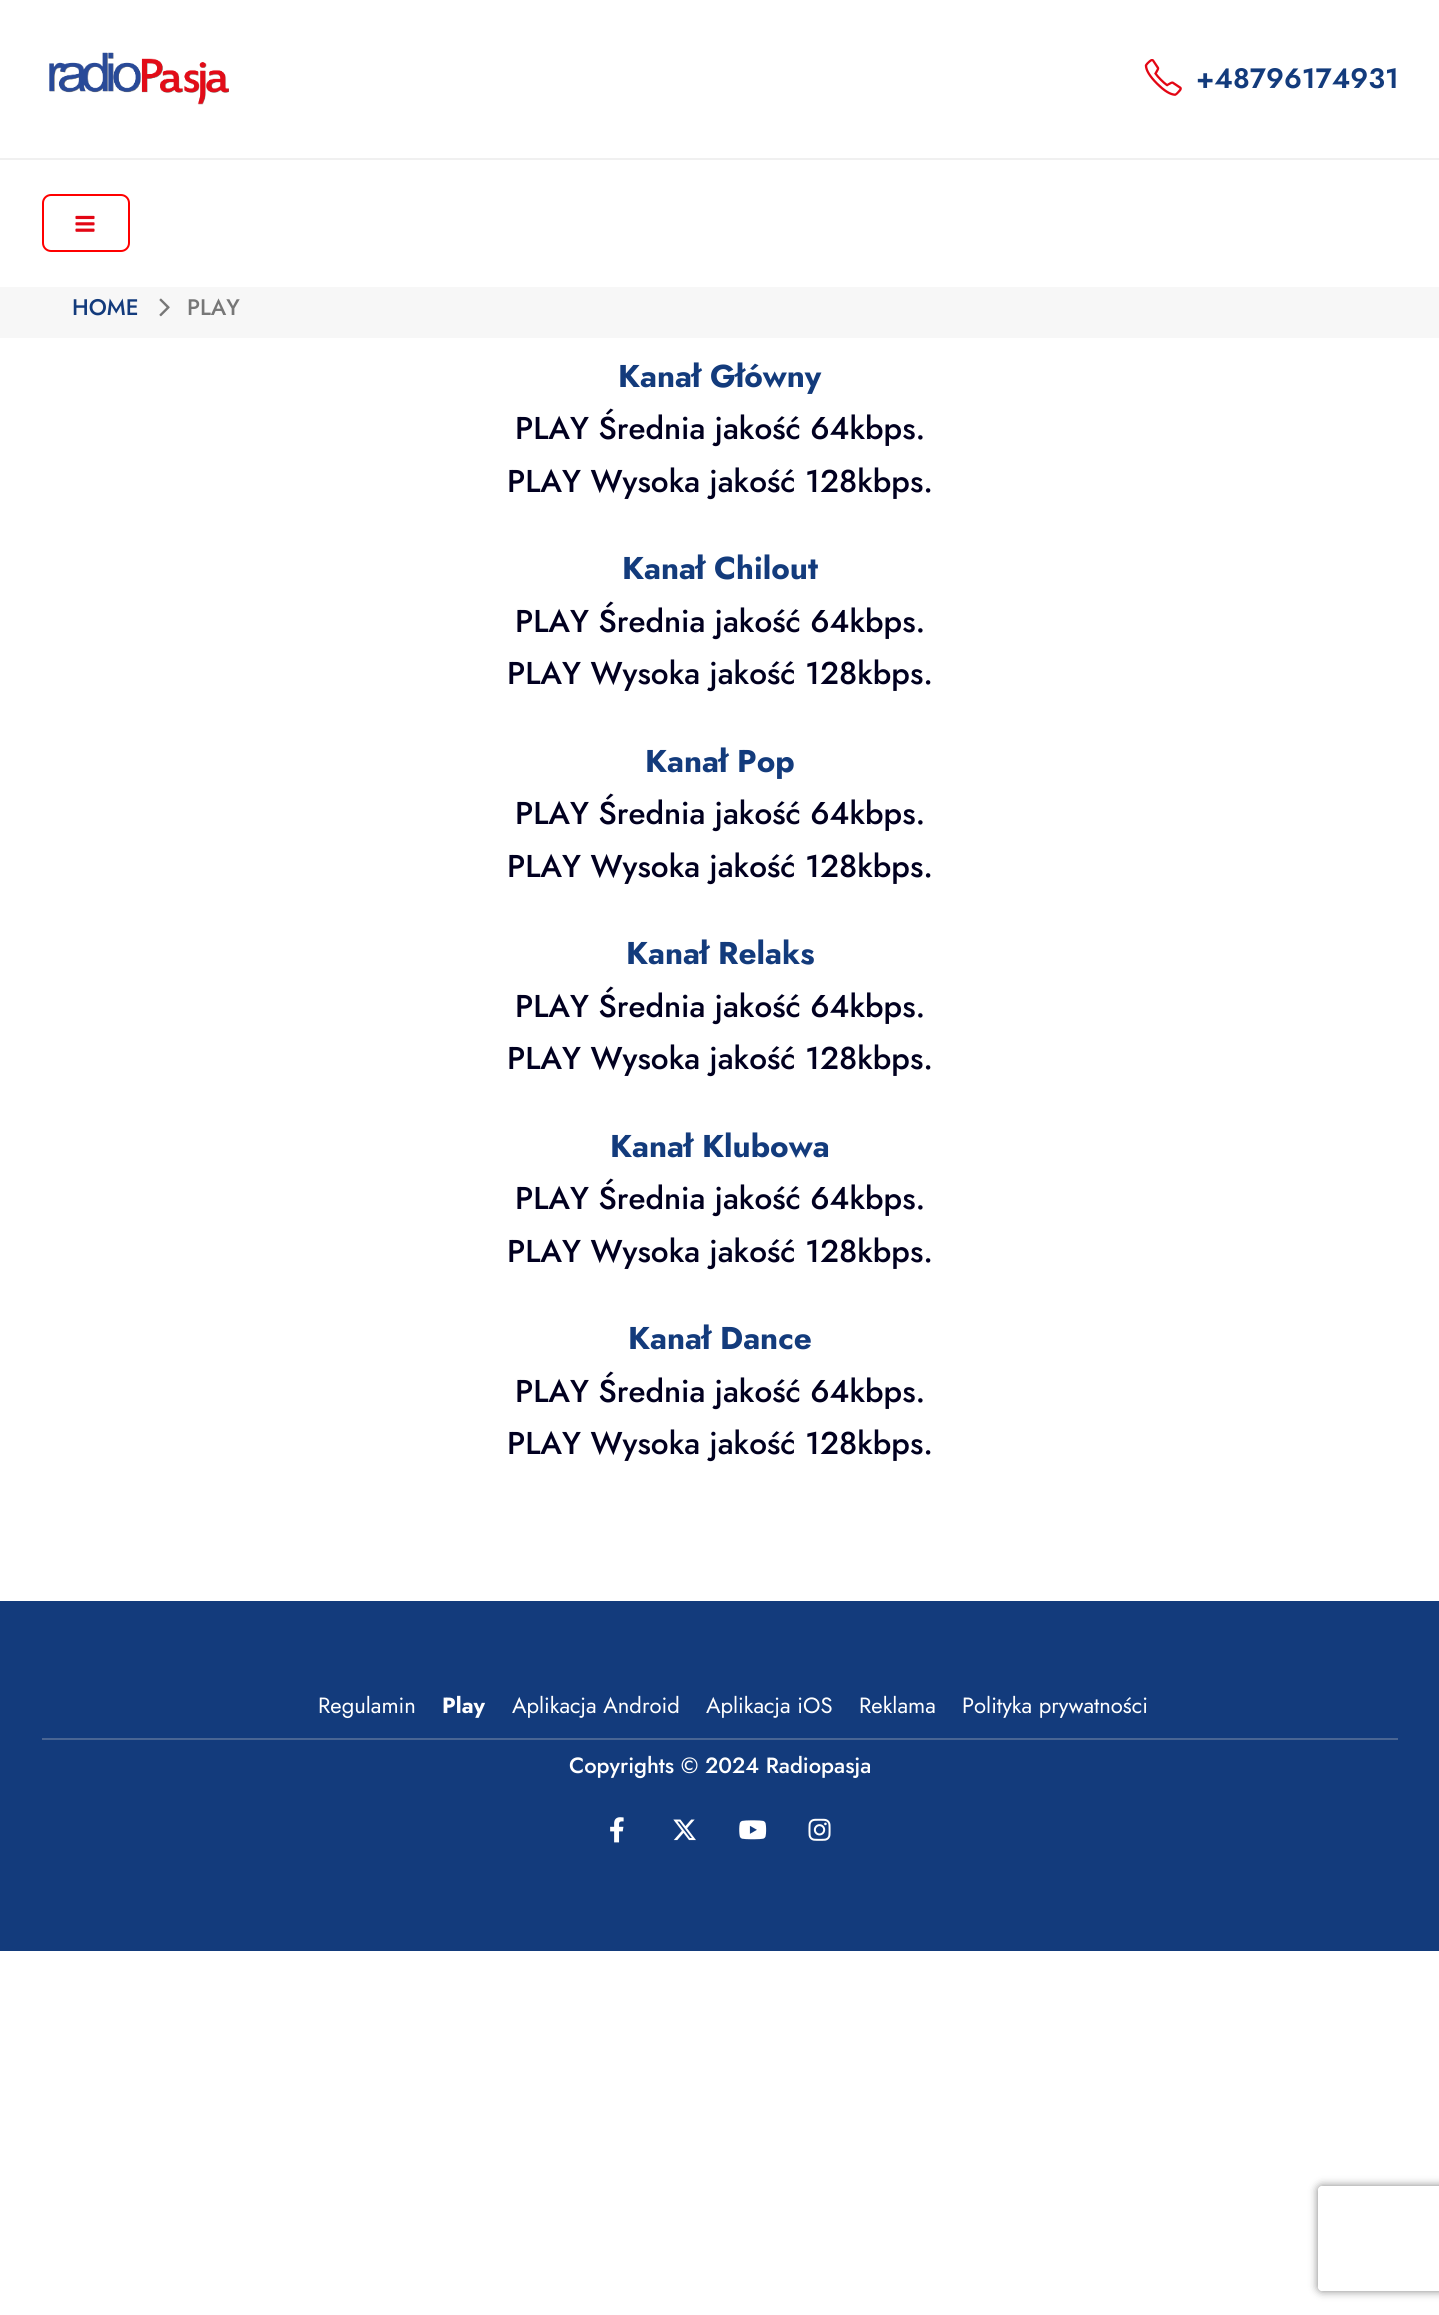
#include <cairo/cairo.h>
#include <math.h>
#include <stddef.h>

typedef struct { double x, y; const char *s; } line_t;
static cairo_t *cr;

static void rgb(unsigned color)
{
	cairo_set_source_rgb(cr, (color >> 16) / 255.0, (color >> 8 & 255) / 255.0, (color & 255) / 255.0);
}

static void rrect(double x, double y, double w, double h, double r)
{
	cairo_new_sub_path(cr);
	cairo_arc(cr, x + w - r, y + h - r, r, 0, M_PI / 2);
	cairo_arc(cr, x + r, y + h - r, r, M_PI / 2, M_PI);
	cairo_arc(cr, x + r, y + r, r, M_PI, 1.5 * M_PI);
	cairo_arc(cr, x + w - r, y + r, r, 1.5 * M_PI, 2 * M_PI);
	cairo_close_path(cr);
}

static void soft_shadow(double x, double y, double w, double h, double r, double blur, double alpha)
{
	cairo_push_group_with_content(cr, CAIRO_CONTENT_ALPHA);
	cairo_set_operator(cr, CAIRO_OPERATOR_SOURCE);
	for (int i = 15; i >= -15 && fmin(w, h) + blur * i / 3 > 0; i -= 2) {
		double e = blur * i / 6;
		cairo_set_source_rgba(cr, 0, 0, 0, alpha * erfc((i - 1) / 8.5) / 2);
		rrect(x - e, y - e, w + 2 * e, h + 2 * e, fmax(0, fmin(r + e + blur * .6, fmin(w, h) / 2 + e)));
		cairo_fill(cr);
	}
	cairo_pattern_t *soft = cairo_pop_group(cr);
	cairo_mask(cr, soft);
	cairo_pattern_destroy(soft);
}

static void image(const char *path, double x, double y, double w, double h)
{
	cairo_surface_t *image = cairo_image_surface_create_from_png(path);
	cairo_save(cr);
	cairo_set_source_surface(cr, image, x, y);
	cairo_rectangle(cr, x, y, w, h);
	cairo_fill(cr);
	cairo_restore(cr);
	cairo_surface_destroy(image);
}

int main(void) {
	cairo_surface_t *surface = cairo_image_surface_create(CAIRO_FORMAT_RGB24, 1439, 2315);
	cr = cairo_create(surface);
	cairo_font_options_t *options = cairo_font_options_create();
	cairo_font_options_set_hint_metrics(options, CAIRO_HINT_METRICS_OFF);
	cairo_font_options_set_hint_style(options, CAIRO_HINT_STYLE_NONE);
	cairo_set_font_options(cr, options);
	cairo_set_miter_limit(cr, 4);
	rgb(0xffffff);
	cairo_paint(cr);
	rgb(0xf0f0f0);
	cairo_rectangle(cr, 0, 158, 1439, 2);
	cairo_fill(cr);
	image("img/1.png", 49, 52, 180, 53);
	image("img/2.png", 1144, 59, 38, 37);
	rrect(43, 195, 86, 56, 8);
	rgb(0xff0000);
	cairo_stroke(cr);
	image("img/3.png", 75, 215, 20, 17);
	rgb(0xf7f7f7);
	cairo_rectangle(cr, 0, 287, 1439, 51);
	cairo_fill(cr);
	image("img/4.png", 159, 298, 11, 19);
	rgb(0x133b7c);
	cairo_rectangle(cr, 0, 1601, 1439, 350);
	cairo_fill(cr);
	rgb(0x496593);
	cairo_rectangle(cr, 42, 1738, 1356, 2);
	cairo_fill(cr);
	image("img/5.png", 610, 1817, 14, 26);
	image("img/6.png", 673, 1819, 23, 22);
	image("img/7.png", 739, 1820, 28, 20);
	image("img/8.png", 808, 1818, 23, 23);
	cairo_save(cr);
	cairo_set_fill_rule(cr, CAIRO_FILL_RULE_EVEN_ODD);
	cairo_new_path(cr);
	cairo_move_to(cr, 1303, 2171);
	cairo_line_to(cr, 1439, 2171);
	cairo_line_to(cr, 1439, 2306);
	cairo_line_to(cr, 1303, 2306);
	cairo_close_path(cr);
	cairo_move_to(cr, 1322, 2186);
	cairo_line_to(cr, 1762, 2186);
	cairo_curve_to(cr, 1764, 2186, 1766, 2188, 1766, 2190);
	cairo_line_to(cr, 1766, 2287);
	cairo_curve_to(cr, 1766, 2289, 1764, 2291, 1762, 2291);
	cairo_line_to(cr, 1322, 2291);
	cairo_curve_to(cr, 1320, 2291, 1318, 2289, 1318, 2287);
	cairo_line_to(cr, 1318, 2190);
	cairo_curve_to(cr, 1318, 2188, 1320, 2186, 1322, 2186);
	cairo_close_path(cr);
	cairo_clip(cr);
	rgb(0x808080);
	soft_shadow(1318, 2186, 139, 105, 4, 4.5, 1);
	cairo_restore(cr);
	cairo_select_font_face(cr, "Jost SemiBold", CAIRO_FONT_SLANT_NORMAL, CAIRO_FONT_WEIGHT_NORMAL);
	cairo_set_font_size(cr, 28);
	rgb(0x133b7c);
	cairo_move_to(cr, 1196, 88);
	cairo_show_text(cr, "+48796174931");
	cairo_select_font_face(cr, "Jost Medium", CAIRO_FONT_SLANT_NORMAL, CAIRO_FONT_WEIGHT_NORMAL);
	cairo_set_font_size(cr, 22.5);
	cairo_move_to(cr, 72, 315);
	cairo_show_text(cr, "HOME");
	rgb(0x777777);
	cairo_move_to(cr, 187, 315);
	cairo_show_text(cr, "PLAY");
	cairo_select_font_face(cr, "Jost", CAIRO_FONT_SLANT_NORMAL, CAIRO_FONT_WEIGHT_BOLD);
	cairo_set_font_size(cr, 31.5);
	rgb(0x133b7c);
	cairo_move_to(cr, 618, 387);
	cairo_show_text(cr, "Kanał Główny");
	cairo_select_font_face(cr, "Jost Medium", CAIRO_FONT_SLANT_NORMAL, CAIRO_FONT_WEIGHT_NORMAL);
	rgb(0x010020);
	cairo_move_to(cr, 515, 439);
	cairo_show_text(cr, "PLAY Średnia jakość 64kbps.");
	cairo_move_to(cr, 507, 492);
	cairo_show_text(cr, "PLAY Wysoka jakość 128kbps.");
	cairo_select_font_face(cr, "Jost", CAIRO_FONT_SLANT_NORMAL, CAIRO_FONT_WEIGHT_BOLD);
	rgb(0x133b7c);
	cairo_move_to(cr, 622, 579);
	cairo_show_text(cr, "Kanał Chilout");
	cairo_select_font_face(cr, "Jost Medium", CAIRO_FONT_SLANT_NORMAL, CAIRO_FONT_WEIGHT_NORMAL);
	rgb(0x010020);
	cairo_move_to(cr, 515, 632);
	cairo_show_text(cr, "PLAY Średnia jakość 64kbps.");
	cairo_move_to(cr, 507, 684);
	cairo_show_text(cr, "PLAY Wysoka jakość 128kbps.");
	cairo_select_font_face(cr, "Jost", CAIRO_FONT_SLANT_NORMAL, CAIRO_FONT_WEIGHT_BOLD);
	rgb(0x133b7c);
	cairo_move_to(cr, 645, 772);
	cairo_show_text(cr, "Kanał Pop");
	cairo_select_font_face(cr, "Jost Medium", CAIRO_FONT_SLANT_NORMAL, CAIRO_FONT_WEIGHT_NORMAL);
	rgb(0x010020);
	cairo_move_to(cr, 515, 824);
	cairo_show_text(cr, "PLAY Średnia jakość 64kbps.");
	cairo_move_to(cr, 507, 877);
	cairo_show_text(cr, "PLAY Wysoka jakość 128kbps.");
	cairo_select_font_face(cr, "Jost", CAIRO_FONT_SLANT_NORMAL, CAIRO_FONT_WEIGHT_BOLD);
	rgb(0x133b7c);
	cairo_move_to(cr, 626, 964);
	cairo_show_text(cr, "Kanał Relaks");
	cairo_select_font_face(cr, "Jost Medium", CAIRO_FONT_SLANT_NORMAL, CAIRO_FONT_WEIGHT_NORMAL);
	rgb(0x010020);
	cairo_move_to(cr, 515, 1017);
	cairo_show_text(cr, "PLAY Średnia jakość 64kbps.");
	cairo_move_to(cr, 507, 1069);
	cairo_show_text(cr, "PLAY Wysoka jakość 128kbps.");
	cairo_select_font_face(cr, "Jost", CAIRO_FONT_SLANT_NORMAL, CAIRO_FONT_WEIGHT_BOLD);
	rgb(0x133b7c);
	cairo_move_to(cr, 610, 1157);
	cairo_show_text(cr, "Kanał Klubowa");
	cairo_select_font_face(cr, "Jost Medium", CAIRO_FONT_SLANT_NORMAL, CAIRO_FONT_WEIGHT_NORMAL);
	rgb(0x010020);
	cairo_move_to(cr, 515, 1209);
	cairo_show_text(cr, "PLAY Średnia jakość 64kbps.");
	cairo_move_to(cr, 507, 1262);
	cairo_show_text(cr, "PLAY Wysoka jakość 128kbps.");
	cairo_select_font_face(cr, "Jost", CAIRO_FONT_SLANT_NORMAL, CAIRO_FONT_WEIGHT_BOLD);
	rgb(0x133b7c);
	cairo_move_to(cr, 628, 1349);
	cairo_show_text(cr, "Kanał Dance");
	cairo_select_font_face(cr, "Jost Medium", CAIRO_FONT_SLANT_NORMAL, CAIRO_FONT_WEIGHT_NORMAL);
	rgb(0x010020);
	cairo_move_to(cr, 515, 1402);
	cairo_show_text(cr, "PLAY Średnia jakość 64kbps.");
	cairo_move_to(cr, 507, 1454);
	cairo_show_text(cr, "PLAY Wysoka jakość 128kbps.");
	cairo_select_font_face(cr, "Jost", CAIRO_FONT_SLANT_NORMAL, CAIRO_FONT_WEIGHT_NORMAL);
	cairo_set_font_size(cr, 22);
	rgb(0xffffff);
	cairo_move_to(cr, 318, 1713);
	cairo_show_text(cr, "Regulamin");
	cairo_select_font_face(cr, "Jost", CAIRO_FONT_SLANT_NORMAL, CAIRO_FONT_WEIGHT_BOLD);
	cairo_move_to(cr, 442, 1713);
	cairo_show_text(cr, "Play");
	cairo_select_font_face(cr, "Jost", CAIRO_FONT_SLANT_NORMAL, CAIRO_FONT_WEIGHT_NORMAL);
	{
		static const line_t items[] = {
			{512, 1713, "Aplikacja Android"},
			{706, 1713, "Aplikacja iOS"},
			{859, 1713, "Reklama"},
			{962, 1713, "Polityka prywatności"},
		};
		for (size_t i = 0; i < sizeof items / sizeof *items; i++) {
			cairo_move_to(cr, items[i].x, items[i].y);
			cairo_show_text(cr, items[i].s);
		}
	}
	cairo_select_font_face(cr, "Jost Medium", CAIRO_FONT_SLANT_NORMAL, CAIRO_FONT_WEIGHT_NORMAL);
	cairo_move_to(cr, 569, 1773);
	cairo_show_text(cr, "Copyrights © 2024 Radiopasja");
	cairo_surface_write_to_png(surface, "page.png");
	cairo_font_options_destroy(options);
	cairo_destroy(cr);
	cairo_surface_destroy(surface);
	return 0;
}
